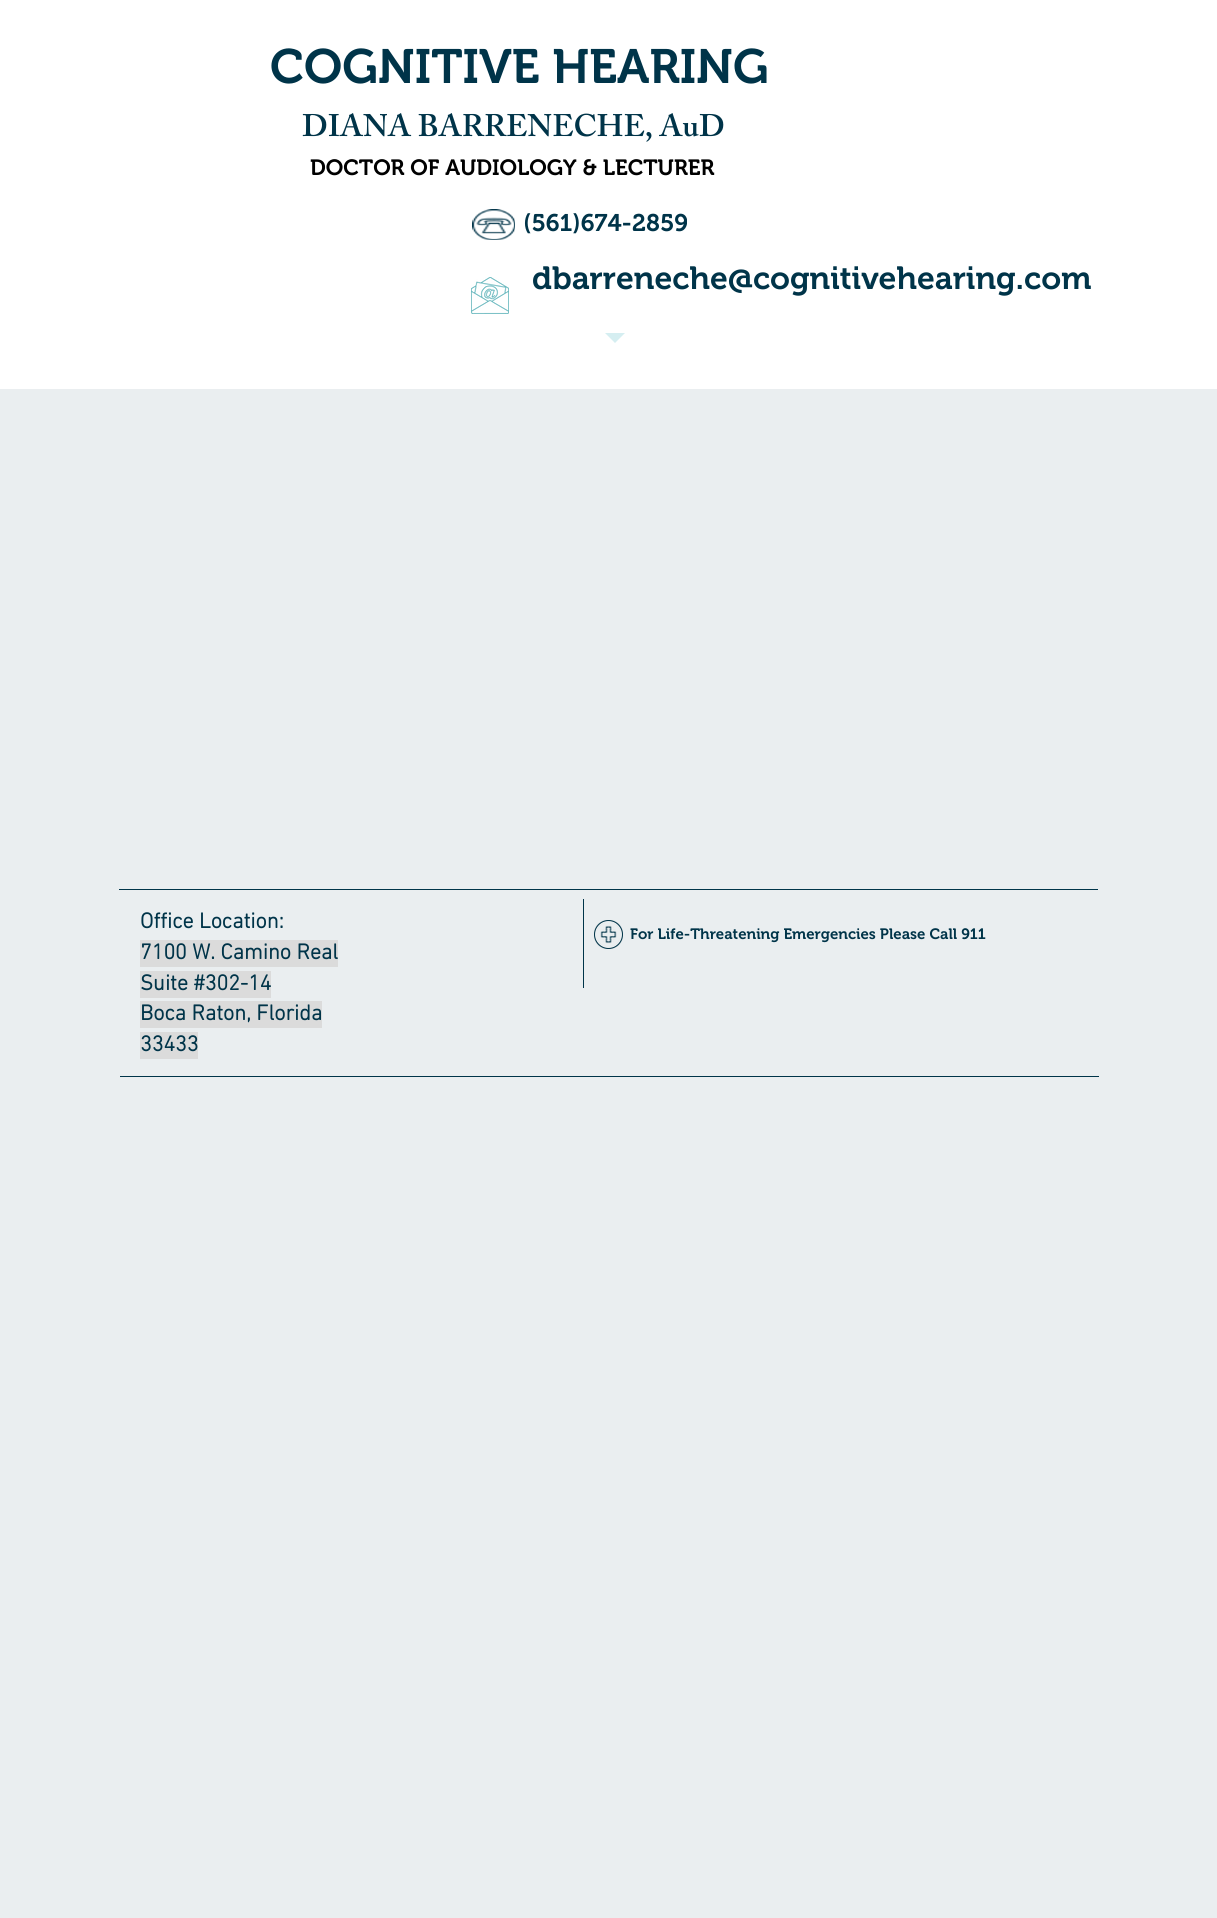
#include <cairo/cairo.h>
#include <math.h>
#include <stddef.h>

typedef struct { double x, y; const char *s; } line_t;
typedef struct { double x, y, w, h; unsigned color; } box_t;
static cairo_t *cr;

static void rgb(unsigned color)
{
	cairo_set_source_rgb(cr, (color >> 16) / 255.0, (color >> 8 & 255) / 255.0, (color & 255) / 255.0);
}

static void image(const char *path, double x, double y, double w, double h)
{
	cairo_surface_t *image = cairo_image_surface_create_from_png(path);
	cairo_save(cr);
	cairo_set_source_surface(cr, image, x, y);
	cairo_rectangle(cr, x, y, w, h);
	cairo_fill(cr);
	cairo_restore(cr);
	cairo_surface_destroy(image);
}

int main(void) {
	cairo_surface_t *surface = cairo_image_surface_create(CAIRO_FORMAT_RGB24, 1217, 1918);
	cr = cairo_create(surface);
	cairo_font_options_t *options = cairo_font_options_create();
	cairo_font_options_set_hint_metrics(options, CAIRO_HINT_METRICS_OFF);
	cairo_font_options_set_hint_style(options, CAIRO_HINT_STYLE_NONE);
	cairo_set_font_options(cr, options);
	cairo_set_miter_limit(cr, 4);
	rgb(0xeaeef0);
	cairo_paint(cr);
	rgb(0xffffff);
	cairo_rectangle(cr, 0, 0, 1217, 389);
	cairo_fill(cr);
	image("img/1.png", 472, 209, 43, 31);
	image("img/2.png", 471, 277, 38, 37);
	rgb(0xd5eef1);
	cairo_new_path(cr);
	cairo_move_to(cr, 605, 333);
	cairo_line_to(cr, 625, 333);
	cairo_line_to(cr, 615, 343);
	cairo_close_path(cr);
	cairo_fill(cr);
	{
		static const box_t items[] = {
			{119, 889, 979, 1, 0x003449},
			{140, 940, 198, 27, 0xdbdbdb},
			{140, 971, 131, 27, 0xdbdbdb},
			{140, 1001, 182, 27, 0xdbdbdb},
			{140, 1032, 58, 27, 0xdbdbdb},
			{583, 899, 1, 89, 0x003449},
		};
		for (size_t i = 0; i < sizeof items / sizeof *items; i++) {
			rgb(items[i].color);
			cairo_rectangle(cr, items[i].x, items[i].y, items[i].w, items[i].h);
			cairo_fill(cr);
		}
	}
	image("img/3.png", 594, 920, 29, 29);
	cairo_rectangle(cr, 120, 1076, 979, 1);
	cairo_fill(cr);
	cairo_select_font_face(cr, "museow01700 SemiBold", CAIRO_FONT_SLANT_NORMAL, CAIRO_FONT_WEIGHT_NORMAL);
	cairo_set_font_size(cr, 48);
	cairo_move_to(cr, 270, 83);
	cairo_show_text(cr, "COGNITIVE HEARING");
	cairo_select_font_face(cr, "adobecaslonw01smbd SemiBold", CAIRO_FONT_SLANT_NORMAL, CAIRO_FONT_WEIGHT_NORMAL);
	cairo_set_font_size(cr, 31);
	cairo_move_to(cr, 302, 136);
	cairo_show_text(cr, "DIANA BARRENECHE, AuD");
	cairo_select_font_face(cr, "museow01700 SemiBold", CAIRO_FONT_SLANT_NORMAL, CAIRO_FONT_WEIGHT_NORMAL);
	cairo_set_font_size(cr, 22);
	rgb(0x000000);
	cairo_move_to(cr, 310, 175);
	cairo_show_text(cr, "DOCTOR OF AUDIOLOGY & LECTURER");
	cairo_set_font_size(cr, 24);
	rgb(0x003449);
	cairo_move_to(cr, 523, 231);
	cairo_show_text(cr, "(561)674-2859");
	cairo_set_font_size(cr, 32);
	cairo_move_to(cr, 532, 289);
	cairo_show_text(cr, "dbarreneche@cognitivehearing.com");
	cairo_select_font_face(cr, "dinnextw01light", CAIRO_FONT_SLANT_NORMAL, CAIRO_FONT_WEIGHT_BOLD);
	cairo_set_font_size(cr, 22);
	{
		static const line_t items[] = {
			{140, 928, "Office Location:"},
			{140, 959, "7100 W. Camino Real"},
			{140, 990, "Suite #302-14"},
			{140, 1020, "Boca Raton, Florida"},
			{140, 1051, "33433"},
		};
		for (size_t i = 0; i < sizeof items / sizeof *items; i++) {
			cairo_move_to(cr, items[i].x, items[i].y);
			cairo_show_text(cr, items[i].s);
		}
	}
	cairo_select_font_face(cr, "museow01700 SemiBold", CAIRO_FONT_SLANT_NORMAL, CAIRO_FONT_WEIGHT_NORMAL);
	cairo_set_font_size(cr, 15);
	cairo_move_to(cr, 630, 939);
	cairo_show_text(cr, "For Life-Threatening Emergencies Please Call 911");
	cairo_surface_write_to_png(surface, "page.png");
	cairo_font_options_destroy(options);
	cairo_destroy(cr);
	cairo_surface_destroy(surface);
	return 0;
}
